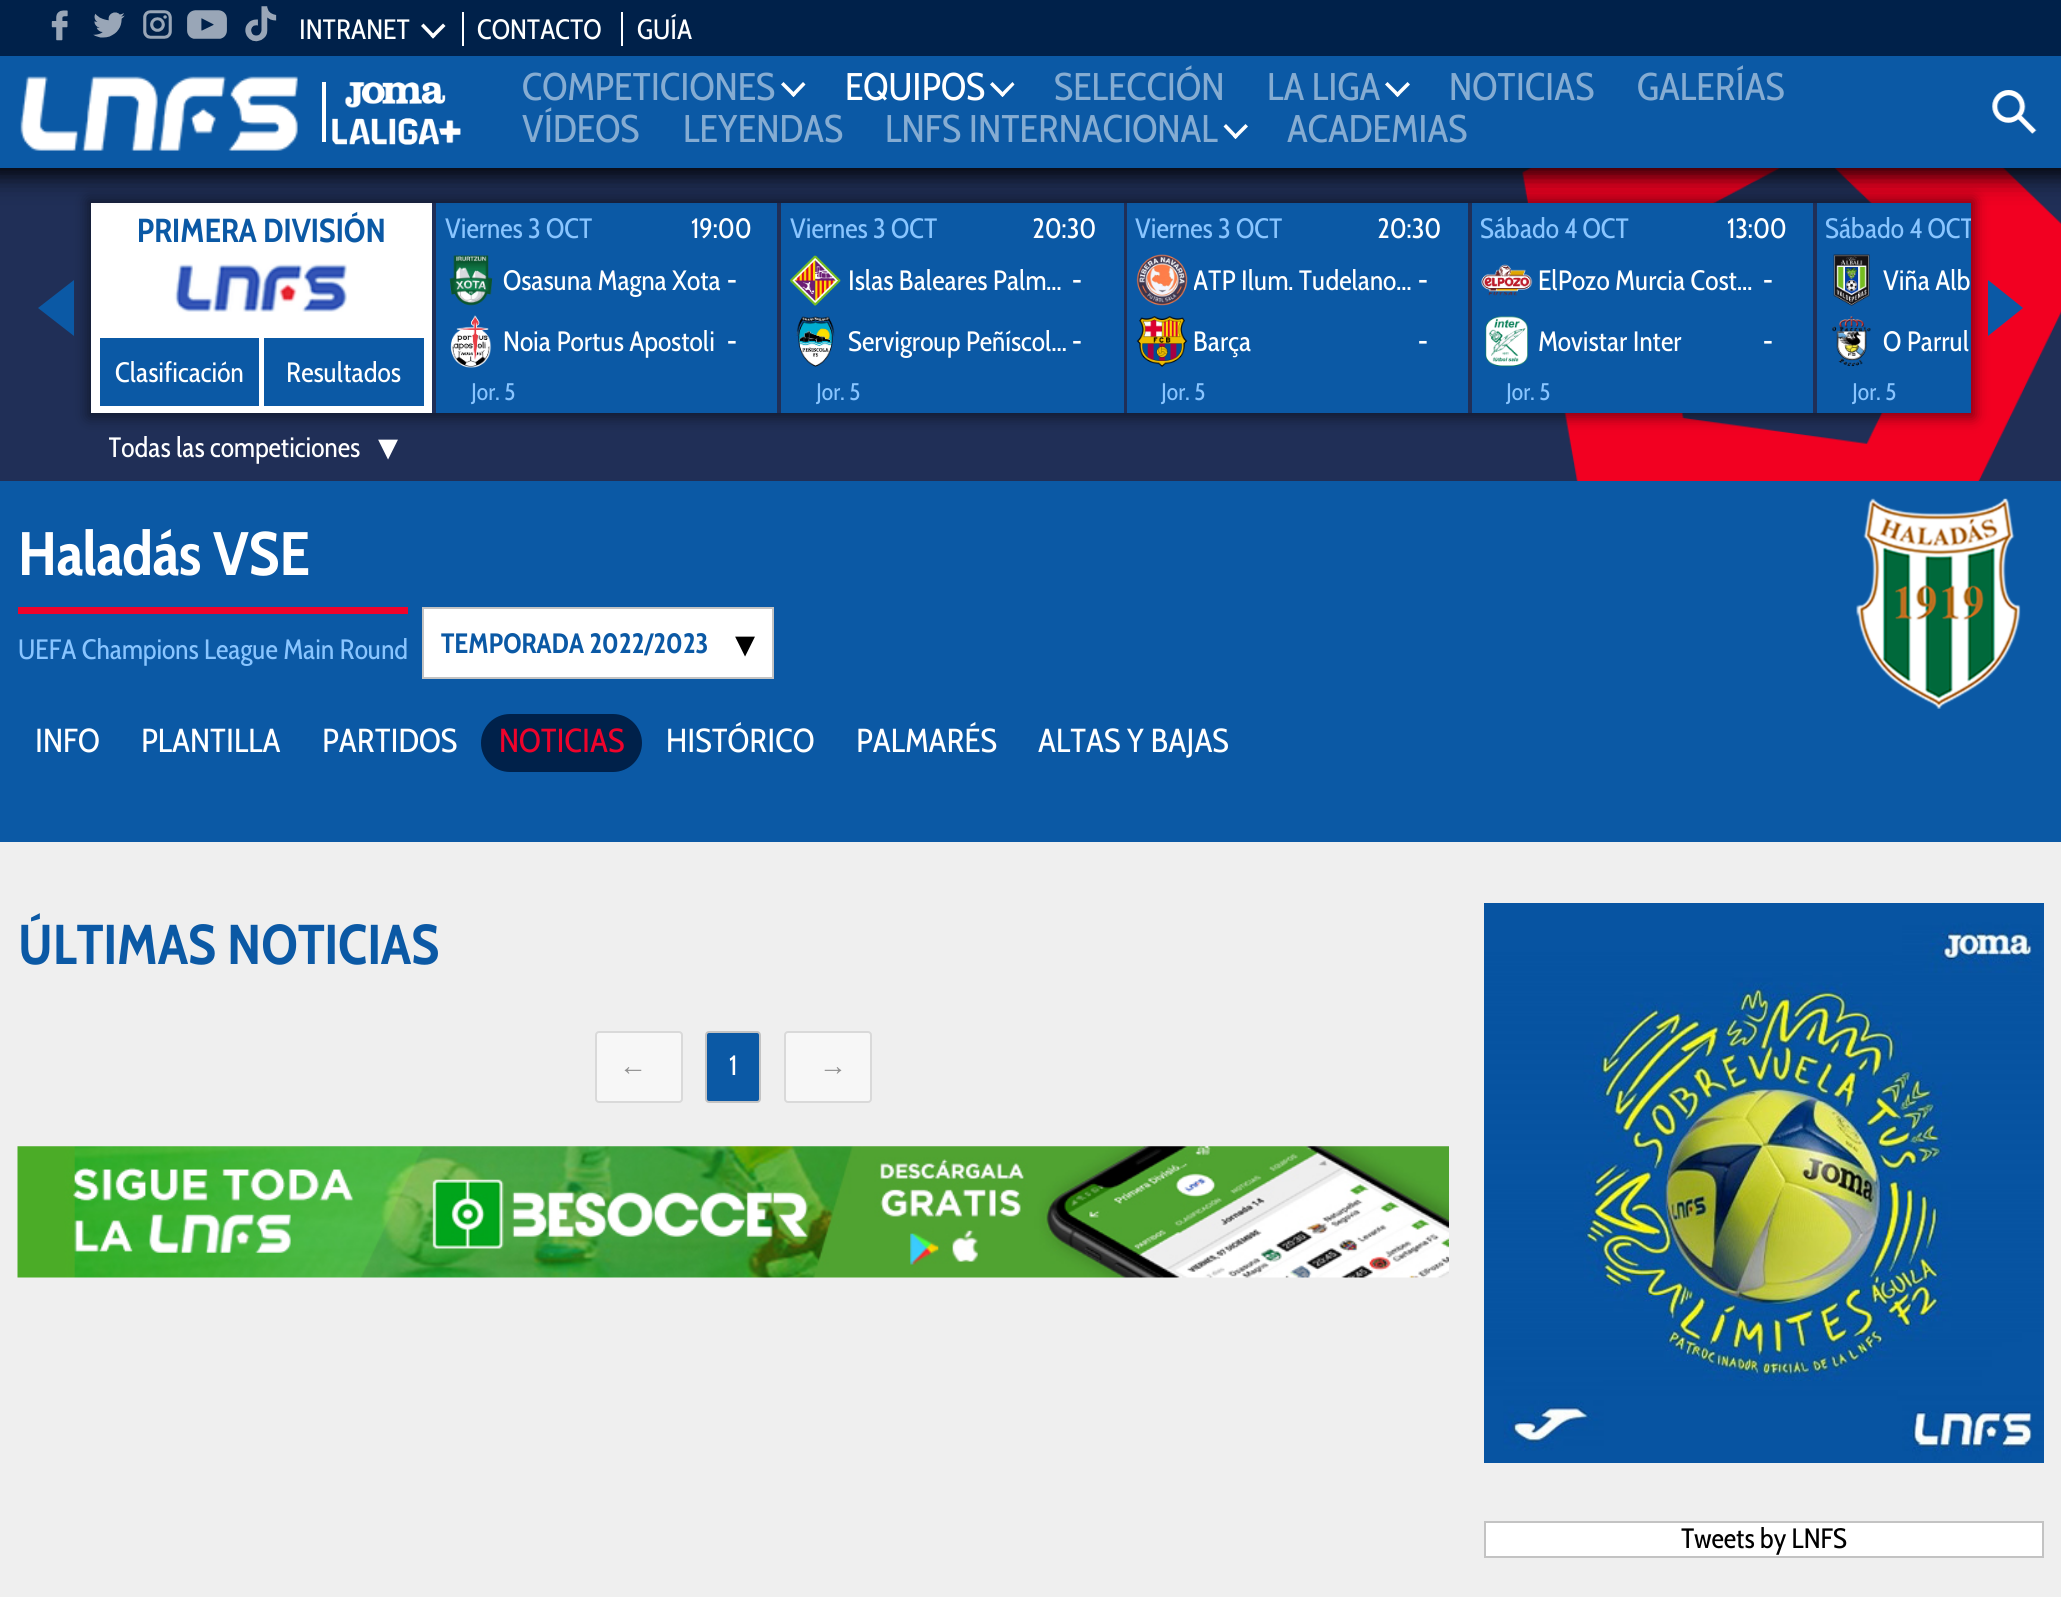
#include <cairo/cairo.h>
#include <math.h>
#include <stddef.h>

typedef struct { double x, y; const char *s; } line_t;
typedef struct { double x, y, w, h; unsigned color; } box_t;
static cairo_t *cr;

static void rgb(unsigned color)
{
	cairo_set_source_rgb(cr, (color >> 16) / 255.0, (color >> 8 & 255) / 255.0, (color & 255) / 255.0);
}

static void rrect(double x, double y, double w, double h, double r)
{
	cairo_new_sub_path(cr);
	cairo_arc(cr, x + w - r, y + h - r, r, 0, M_PI / 2);
	cairo_arc(cr, x + r, y + h - r, r, M_PI / 2, M_PI);
	cairo_arc(cr, x + r, y + r, r, M_PI, 1.5 * M_PI);
	cairo_arc(cr, x + w - r, y + r, r, 1.5 * M_PI, 2 * M_PI);
	cairo_close_path(cr);
}

static void soft_shadow(double x, double y, double w, double h, double r, double blur, double alpha)
{
	cairo_push_group_with_content(cr, CAIRO_CONTENT_ALPHA);
	cairo_set_operator(cr, CAIRO_OPERATOR_SOURCE);
	for (int i = 15; i >= -15 && fmin(w, h) + blur * i / 3 > 0; i -= 2) {
		double e = blur * i / 6;
		cairo_set_source_rgba(cr, 0, 0, 0, alpha * erfc((i - 1) / 8.5) / 2);
		rrect(x - e, y - e, w + 2 * e, h + 2 * e, fmax(0, fmin(r + e + blur * .6, fmin(w, h) / 2 + e)));
		cairo_fill(cr);
	}
	cairo_pattern_t *soft = cairo_pop_group(cr);
	cairo_mask(cr, soft);
	cairo_pattern_destroy(soft);
}

static void image(const char *path, double x, double y, double w, double h)
{
	cairo_surface_t *image = cairo_image_surface_create_from_png(path);
	cairo_save(cr);
	cairo_set_source_surface(cr, image, x, y);
	cairo_rectangle(cr, x, y, w, h);
	cairo_fill(cr);
	cairo_restore(cr);
	cairo_surface_destroy(image);
}

int main(void) {
	cairo_surface_t *surface = cairo_image_surface_create(CAIRO_FORMAT_RGB24, 2061, 1597);
	cr = cairo_create(surface);
	cairo_font_options_t *options = cairo_font_options_create();
	cairo_font_options_set_hint_metrics(options, CAIRO_HINT_METRICS_OFF);
	cairo_font_options_set_hint_style(options, CAIRO_HINT_STYLE_NONE);
	cairo_set_font_options(cr, options);
	cairo_set_miter_limit(cr, 4);
	rgb(0xefefef);
	cairo_paint(cr);
	image("img/10.png", 0, 168, 2061, 313);
	cairo_save(cr);
	cairo_set_fill_rule(cr, CAIRO_FILL_RULE_EVEN_ODD);
	cairo_new_path(cr);
	cairo_move_to(cr, 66, 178);
	cairo_line_to(cr, 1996, 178);
	cairo_line_to(cr, 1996, 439);
	cairo_line_to(cr, 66, 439);
	cairo_close_path(cr);
	cairo_move_to(cr, 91, 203);
	cairo_line_to(cr, 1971, 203);
	cairo_line_to(cr, 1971, 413);
	cairo_line_to(cr, 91, 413);
	cairo_close_path(cr);
	cairo_clip(cr);
	rgb(0x000000);
	soft_shadow(88, 200, 1886, 217, 0, 7, 0.5);
	cairo_restore(cr);
	{
		static const box_t items[] = {
			{91, 203, 341, 210, 0xffffff},
			{436, 203, 341, 210, 0x0b59a5},
			{781, 203, 343, 210, 0x0b59a5},
			{1127, 203, 341, 210, 0x0b59a5},
			{1472, 203, 341, 210, 0x0b59a5},
			{1817, 203, 154, 210, 0x0b59a5},
		};
		for (size_t i = 0; i < sizeof items / sizeof *items; i++) {
			rgb(items[i].color);
			cairo_rectangle(cr, items[i].x, items[i].y, items[i].w, items[i].h);
			cairo_fill(cr);
		}
	}
	rgb(0x000000);
	soft_shadow(-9, -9, 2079, 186, 0, 13, 0.7);
	soft_shadow(-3, 53, 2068, 119, 0, 7, 0.5);
	rgb(0x00214a);
	cairo_rectangle(cr, 0, 0, 2061, 56);
	cairo_fill(cr);
	image("img/1.png", 51, 10, 17, 31);
	image("img/2.png", 93, 12, 32, 26);
	image("img/3.png", 143, 10, 29, 29);
	image("img/4.png", 187, 10, 40, 29);
	image("img/5.png", 245, 6, 32, 36);
	rgb(0xffffff);
	cairo_new_path(cr);
	cairo_move_to(cr, 443, 23.5);
	cairo_line_to(cr, 445.5, 26);
	cairo_line_to(cr, 433, 38.5);
	cairo_line_to(cr, 430.5, 36);
	cairo_close_path(cr);
	cairo_fill(cr);
	cairo_new_path(cr);
	cairo_move_to(cr, 423.5, 23.5);
	cairo_line_to(cr, 435.5, 36);
	cairo_line_to(cr, 433, 38.5);
	cairo_line_to(cr, 421, 26);
	cairo_close_path(cr);
	cairo_fill(cr);
	{
		static const box_t items[] = {
			{462, 12, 2, 34, 0xffffff},
			{621, 12, 2, 34, 0xffffff},
			{0, 56, 2061, 112, 0x0b59a5},
		};
		for (size_t i = 0; i < sizeof items / sizeof *items; i++) {
			rgb(items[i].color);
			cairo_rectangle(cr, items[i].x, items[i].y, items[i].w, items[i].h);
			cairo_fill(cr);
		}
	}
	image("img/6.png", 20, 76, 278, 75);
	rgb(0xffffff);
	cairo_rectangle(cr, 322, 82, 4, 60);
	cairo_fill(cr);
	image("img/7.png", 345, 82, 101, 26);
	image("img/8.png", 332, 118, 129, 27);
	cairo_new_path(cr);
	cairo_move_to(cr, 803, 82);
	cairo_line_to(cr, 805.5, 84.5);
	cairo_line_to(cr, 793.5, 97);
	cairo_line_to(cr, 791, 94.5);
	cairo_close_path(cr);
	cairo_fill(cr);
	cairo_new_path(cr);
	cairo_move_to(cr, 783.5, 82);
	cairo_line_to(cr, 796, 94.5);
	cairo_line_to(cr, 793.5, 97);
	cairo_line_to(cr, 781, 84.5);
	cairo_close_path(cr);
	cairo_fill(cr);
	cairo_new_path(cr);
	cairo_move_to(cr, 1012.5, 82);
	cairo_line_to(cr, 1014.5, 84.5);
	cairo_line_to(cr, 1002.5, 97);
	cairo_line_to(cr, 1000, 94.5);
	cairo_close_path(cr);
	cairo_fill(cr);
	cairo_new_path(cr);
	cairo_move_to(cr, 992.5, 82);
	cairo_line_to(cr, 1005, 94.5);
	cairo_line_to(cr, 1002.5, 97);
	cairo_line_to(cr, 990, 84.5);
	cairo_close_path(cr);
	cairo_fill(cr);
	cairo_new_path(cr);
	cairo_move_to(cr, 1407.5, 82);
	cairo_line_to(cr, 1410, 84.5);
	cairo_line_to(cr, 1397.5, 97);
	cairo_line_to(cr, 1395, 94.5);
	cairo_close_path(cr);
	cairo_fill(cr);
	cairo_new_path(cr);
	cairo_move_to(cr, 1387.5, 82);
	cairo_line_to(cr, 1400, 94.5);
	cairo_line_to(cr, 1397.5, 97);
	cairo_line_to(cr, 1385, 84.5);
	cairo_close_path(cr);
	cairo_fill(cr);
	cairo_new_path(cr);
	cairo_move_to(cr, 1245.5, 124);
	cairo_line_to(cr, 1248, 126.5);
	cairo_line_to(cr, 1235.5, 139);
	cairo_line_to(cr, 1233, 136.5);
	cairo_close_path(cr);
	cairo_fill(cr);
	cairo_new_path(cr);
	cairo_move_to(cr, 1226, 124);
	cairo_line_to(cr, 1238, 136.5);
	cairo_line_to(cr, 1235.5, 139);
	cairo_line_to(cr, 1223.5, 126.5);
	cairo_close_path(cr);
	cairo_fill(cr);
	image("img/9.png", 1992, 90, 45, 44);
	rgb(0x0b59a5);
	cairo_new_path(cr);
	cairo_move_to(cr, 74, 280);
	cairo_line_to(cr, 74, 336);
	cairo_line_to(cr, 38, 308);
	cairo_close_path(cr);
	cairo_fill(cr);
	image("img/11.png", 174, 264, 173, 48);
	cairo_rectangle(cr, 100, 338, 159, 68);
	cairo_fill(cr);
	cairo_rectangle(cr, 264, 338, 160, 68);
	cairo_fill(cr);
	image("img/12.png", 449, 255, 44, 51);
	image("img/13.png", 450, 315, 42, 53);
	image("img/14.png", 790, 255, 51, 51);
	image("img/15.png", 796, 316, 39, 51);
	image("img/16.png", 1136, 254, 52, 52);
	image("img/17.png", 1136, 316, 52, 51);
	image("img/18.png", 1481, 264, 52, 32);
	image("img/19.png", 1485, 316, 43, 51);
	image("img/20.png", 1833, 254, 37, 52);
	image("img/21.png", 1832, 316, 39, 51);
	cairo_new_path(cr);
	cairo_move_to(cr, 1988, 336);
	cairo_line_to(cr, 1988, 280);
	cairo_line_to(cr, 2023, 308);
	cairo_close_path(cr);
	cairo_fill(cr);
	cairo_rectangle(cr, 0, 481, 2061, 361);
	cairo_fill(cr);
	image("img/22.png", 1856, 498, 165, 211);
	rgb(0xef032b);
	cairo_rectangle(cr, 18, 607, 390, 7);
	cairo_fill(cr);
	rgb(0xffffff);
	cairo_rectangle(cr, 423, 608, 350, 70);
	cairo_fill_preserve(cr);
	rgb(0xc3c3c3);
	cairo_stroke(cr);
	rgb(0x00214a);
	rrect(481, 714, 161, 58, 29);
	cairo_fill(cr);
	rgb(0xf7f7f7);
	rrect(596, 1032, 86, 70, 3);
	cairo_fill_preserve(cr);
	rgb(0xd9d9d9);
	cairo_stroke(cr);
	rgb(0x0b59a5);
	rrect(706, 1032, 54, 70, 3);
	cairo_fill_preserve(cr);
	rgb(0xc3c3c3);
	cairo_stroke(cr);
	rgb(0xf7f7f7);
	rrect(785, 1032, 86, 70, 3);
	cairo_fill_preserve(cr);
	rgb(0xd9d9d9);
	cairo_stroke(cr);
	image("img/23.png", 17, 1146, 1432, 132);
	image("img/24.png", 1484, 903, 560, 560);
	rgb(0xffffff);
	cairo_rectangle(cr, 1485, 1522, 558, 35);
	cairo_fill_preserve(cr);
	rgb(0xc3c3c3);
	cairo_stroke(cr);
	cairo_select_font_face(cr, "Cabin Condensed", CAIRO_FONT_SLANT_NORMAL, CAIRO_FONT_WEIGHT_NORMAL);
	cairo_set_font_size(cr, 28);
	rgb(0xffffff);
	{
		static const line_t items[] = {
			{299, 39, "INTRANET"},
			{477, 39, "CONTACTO"},
			{637, 39, "GUÍA"},
		};
		for (size_t i = 0; i < sizeof items / sizeof *items; i++) {
			cairo_move_to(cr, items[i].x, items[i].y);
			cairo_show_text(cr, items[i].s);
		}
	}
	cairo_set_font_size(cr, 38.5);
	rgb(0x85acd2);
	cairo_move_to(cr, 522, 100);
	cairo_show_text(cr, "COMPETICIONES");
	rgb(0xffffff);
	cairo_move_to(cr, 845, 100);
	cairo_show_text(cr, "EQUIPOS");
	rgb(0x85acd2);
	{
		static const line_t items[] = {
			{1054, 100, "SELECCIÓN"},
			{1267, 100, "LA LIGA"},
			{1449, 100, "NOTICIAS"},
			{1637, 100, "GALERÍAS"},
			{522, 142, "VÍDEOS"},
			{683, 142, "LEYENDAS"},
			{885, 142, "LNFS INTERNACIONAL"},
			{1287, 142, "ACADEMIAS"},
		};
		for (size_t i = 0; i < sizeof items / sizeof *items; i++) {
			cairo_move_to(cr, items[i].x, items[i].y);
			cairo_show_text(cr, items[i].s);
		}
	}
	cairo_select_font_face(cr, "Cabin Condensed", CAIRO_FONT_SLANT_NORMAL, CAIRO_FONT_WEIGHT_BOLD);
	cairo_set_font_size(cr, 33.25);
	rgb(0x0b59a5);
	cairo_move_to(cr, 137, 242);
	cairo_show_text(cr, "PRIMERA DIVISIÓN");
	cairo_select_font_face(cr, "Cabin Condensed", CAIRO_FONT_SLANT_NORMAL, CAIRO_FONT_WEIGHT_NORMAL);
	cairo_set_font_size(cr, 28);
	rgb(0xffffff);
	cairo_move_to(cr, 115, 382);
	cairo_show_text(cr, "Clasificación");
	cairo_move_to(cr, 286, 382);
	cairo_show_text(cr, "Resultados");
	rgb(0x89c5ff);
	cairo_move_to(cr, 445, 238);
	cairo_show_text(cr, "Viernes 3 OCT");
	rgb(0xffffff);
	cairo_move_to(cr, 691, 238);
	cairo_show_text(cr, "19:00");
	cairo_move_to(cr, 503, 290);
	cairo_show_text(cr, "Osasuna Magna Xota");
	cairo_select_font_face(cr, "Cabin Condensed", CAIRO_FONT_SLANT_NORMAL, CAIRO_FONT_WEIGHT_BOLD);
	cairo_move_to(cr, 727, 290);
	cairo_show_text(cr, "-");
	cairo_select_font_face(cr, "Cabin Condensed", CAIRO_FONT_SLANT_NORMAL, CAIRO_FONT_WEIGHT_NORMAL);
	cairo_move_to(cr, 503, 351);
	cairo_show_text(cr, "Noia Portus Apostoli");
	cairo_select_font_face(cr, "Cabin Condensed", CAIRO_FONT_SLANT_NORMAL, CAIRO_FONT_WEIGHT_BOLD);
	cairo_move_to(cr, 727, 351);
	cairo_show_text(cr, "-");
	cairo_select_font_face(cr, "Cabin Condensed", CAIRO_FONT_SLANT_NORMAL, CAIRO_FONT_WEIGHT_NORMAL);
	cairo_set_font_size(cr, 24);
	rgb(0x89c5ff);
	cairo_move_to(cr, 471, 400);
	cairo_show_text(cr, "Jor. 5");
	cairo_set_font_size(cr, 28);
	cairo_move_to(cr, 790, 238);
	cairo_show_text(cr, "Viernes 3 OCT");
	rgb(0xffffff);
	cairo_move_to(cr, 1032, 238);
	cairo_show_text(cr, "20:30");
	cairo_move_to(cr, 848, 290);
	cairo_show_text(cr, "Islas Baleares Palm…");
	cairo_select_font_face(cr, "Cabin Condensed", CAIRO_FONT_SLANT_NORMAL, CAIRO_FONT_WEIGHT_BOLD);
	cairo_move_to(cr, 1072, 290);
	cairo_show_text(cr, "-");
	cairo_select_font_face(cr, "Cabin Condensed", CAIRO_FONT_SLANT_NORMAL, CAIRO_FONT_WEIGHT_NORMAL);
	cairo_move_to(cr, 848, 351);
	cairo_show_text(cr, "Servigroup Peñíscol…");
	cairo_select_font_face(cr, "Cabin Condensed", CAIRO_FONT_SLANT_NORMAL, CAIRO_FONT_WEIGHT_BOLD);
	cairo_move_to(cr, 1072, 351);
	cairo_show_text(cr, "-");
	cairo_select_font_face(cr, "Cabin Condensed", CAIRO_FONT_SLANT_NORMAL, CAIRO_FONT_WEIGHT_NORMAL);
	cairo_set_font_size(cr, 24);
	rgb(0x89c5ff);
	cairo_move_to(cr, 816, 400);
	cairo_show_text(cr, "Jor. 5");
	cairo_set_font_size(cr, 28);
	cairo_move_to(cr, 1135, 238);
	cairo_show_text(cr, "Viernes 3 OCT");
	rgb(0xffffff);
	cairo_move_to(cr, 1377, 238);
	cairo_show_text(cr, "20:30");
	cairo_save(cr);
	cairo_rectangle(cr, 1194, 264, 218, 34);
	cairo_clip(cr);
	cairo_move_to(cr, 1193, 290);
	cairo_show_text(cr, "ATP Ilum. Tudelano…");
	cairo_restore(cr);
	cairo_select_font_face(cr, "Cabin Condensed", CAIRO_FONT_SLANT_NORMAL, CAIRO_FONT_WEIGHT_BOLD);
	cairo_move_to(cr, 1418, 290);
	cairo_show_text(cr, "-");
	cairo_select_font_face(cr, "Cabin Condensed", CAIRO_FONT_SLANT_NORMAL, CAIRO_FONT_WEIGHT_NORMAL);
	cairo_move_to(cr, 1193, 351);
	cairo_show_text(cr, "Barça");
	cairo_select_font_face(cr, "Cabin Condensed", CAIRO_FONT_SLANT_NORMAL, CAIRO_FONT_WEIGHT_BOLD);
	cairo_move_to(cr, 1418, 351);
	cairo_show_text(cr, "-");
	cairo_select_font_face(cr, "Cabin Condensed", CAIRO_FONT_SLANT_NORMAL, CAIRO_FONT_WEIGHT_NORMAL);
	cairo_set_font_size(cr, 24);
	rgb(0x89c5ff);
	cairo_move_to(cr, 1161, 400);
	cairo_show_text(cr, "Jor. 5");
	cairo_set_font_size(cr, 28);
	cairo_move_to(cr, 1480, 238);
	cairo_show_text(cr, "Sábado 4 OCT");
	rgb(0xffffff);
	cairo_move_to(cr, 1727, 238);
	cairo_show_text(cr, "13:00");
	cairo_move_to(cr, 1538, 290);
	cairo_show_text(cr, "ElPozo Murcia Cost…");
	cairo_select_font_face(cr, "Cabin Condensed", CAIRO_FONT_SLANT_NORMAL, CAIRO_FONT_WEIGHT_BOLD);
	cairo_move_to(cr, 1763, 290);
	cairo_show_text(cr, "-");
	cairo_select_font_face(cr, "Cabin Condensed", CAIRO_FONT_SLANT_NORMAL, CAIRO_FONT_WEIGHT_NORMAL);
	cairo_move_to(cr, 1538, 351);
	cairo_show_text(cr, "Movistar Inter");
	cairo_select_font_face(cr, "Cabin Condensed", CAIRO_FONT_SLANT_NORMAL, CAIRO_FONT_WEIGHT_BOLD);
	cairo_move_to(cr, 1763, 351);
	cairo_show_text(cr, "-");
	cairo_select_font_face(cr, "Cabin Condensed", CAIRO_FONT_SLANT_NORMAL, CAIRO_FONT_WEIGHT_NORMAL);
	cairo_set_font_size(cr, 24);
	rgb(0x89c5ff);
	cairo_move_to(cr, 1506, 400);
	cairo_show_text(cr, "Jor. 5");
	cairo_save(cr);
	cairo_rectangle(cr, 91, 203, 1880, 210);
	cairo_clip(cr);
	cairo_set_font_size(cr, 28);
	cairo_move_to(cr, 1825, 238);
	cairo_show_text(cr, "Sábado 4 OCT");
	cairo_restore(cr);
	cairo_set_font_size(cr, 28);
	rgb(0xffffff);
	cairo_move_to(cr, 1883, 290);
	cairo_show_text(cr, "Viña Alb");
	cairo_move_to(cr, 1883, 351);
	cairo_show_text(cr, "O Parrul");
	cairo_set_font_size(cr, 24);
	rgb(0x89c5ff);
	cairo_move_to(cr, 1852, 400);
	cairo_show_text(cr, "Jor. 5");
	cairo_save(cr);
	cairo_rectangle(cr, 109, 431, 253, 33);
	cairo_clip(cr);
	cairo_set_font_size(cr, 28);
	rgb(0xffffff);
	cairo_move_to(cr, 108, 457);
	cairo_show_text(cr, "Todas las competiciones");
	cairo_restore(cr);
	cairo_select_font_face(cr, "DejaVu Sans", CAIRO_FONT_SLANT_NORMAL, CAIRO_FONT_WEIGHT_NORMAL);
	cairo_set_font_size(cr, 40);
	rgb(0xffffff);
	cairo_move_to(cr, 378, 460);
	cairo_show_text(cr, "▾");
	cairo_select_font_face(cr, "Cabin Condensed", CAIRO_FONT_SLANT_NORMAL, CAIRO_FONT_WEIGHT_BOLD);
	cairo_set_font_size(cr, 61.25);
	cairo_move_to(cr, 18, 575);
	cairo_show_text(cr, "Haladás VSE");
	cairo_select_font_face(cr, "Cabin Condensed", CAIRO_FONT_SLANT_NORMAL, CAIRO_FONT_WEIGHT_NORMAL);
	cairo_set_font_size(cr, 28);
	rgb(0x89c5ff);
	cairo_move_to(cr, 18, 659);
	cairo_show_text(cr, "UEFA Champions League Main Round");
	cairo_select_font_face(cr, "Cabin Condensed", CAIRO_FONT_SLANT_NORMAL, CAIRO_FONT_WEIGHT_BOLD);
	rgb(0x0b59a5);
	cairo_move_to(cr, 441, 653);
	cairo_show_text(cr, "TEMPORADA 2022/2023");
	cairo_select_font_face(cr, "DejaVu Sans", CAIRO_FONT_SLANT_NORMAL, CAIRO_FONT_WEIGHT_NORMAL);
	cairo_set_font_size(cr, 40);
	rgb(0x000000);
	cairo_move_to(cr, 735, 657);
	cairo_show_text(cr, "▾");
	cairo_select_font_face(cr, "Cabin Condensed", CAIRO_FONT_SLANT_NORMAL, CAIRO_FONT_WEIGHT_NORMAL);
	cairo_set_font_size(cr, 33.25);
	rgb(0xffffff);
	{
		static const line_t items[] = {
			{35, 752, "INFO"},
			{141, 752, "PLANTILLA"},
			{322, 752, "PARTIDOS"},
		};
		for (size_t i = 0; i < sizeof items / sizeof *items; i++) {
			cairo_move_to(cr, items[i].x, items[i].y);
			cairo_show_text(cr, items[i].s);
		}
	}
	rgb(0xef032b);
	cairo_move_to(cr, 499, 752);
	cairo_show_text(cr, "NOTICIAS");
	rgb(0xffffff);
	{
		static const line_t items[] = {
			{666, 752, "HISTÓRICO"},
			{856, 752, "PALMARÉS"},
			{1038, 752, "ALTAS Y BAJAS"},
		};
		for (size_t i = 0; i < sizeof items / sizeof *items; i++) {
			cairo_move_to(cr, items[i].x, items[i].y);
			cairo_show_text(cr, items[i].s);
		}
	}
	cairo_select_font_face(cr, "Cabin Condensed", CAIRO_FONT_SLANT_NORMAL, CAIRO_FONT_WEIGHT_BOLD);
	cairo_set_font_size(cr, 56);
	rgb(0x0b59a5);
	cairo_move_to(cr, 18, 964);
	cairo_show_text(cr, "ÚLTIMAS NOTICIAS");
	cairo_select_font_face(cr, "Liberation Sans", CAIRO_FONT_SLANT_NORMAL, CAIRO_FONT_WEIGHT_NORMAL);
	cairo_set_font_size(cr, 28);
	rgb(0x919191);
	cairo_move_to(cr, 619, 1075);
	cairo_show_text(cr, "←");
	cairo_select_font_face(cr, "Cabin Condensed", CAIRO_FONT_SLANT_NORMAL, CAIRO_FONT_WEIGHT_NORMAL);
	rgb(0xffffff);
	cairo_move_to(cr, 729, 1075);
	cairo_show_text(cr, "1");
	cairo_select_font_face(cr, "Liberation Sans", CAIRO_FONT_SLANT_NORMAL, CAIRO_FONT_WEIGHT_NORMAL);
	rgb(0x919191);
	cairo_move_to(cr, 819, 1075);
	cairo_show_text(cr, "→");
	cairo_select_font_face(cr, "Cabin Condensed", CAIRO_FONT_SLANT_NORMAL, CAIRO_FONT_WEIGHT_NORMAL);
	rgb(0x000000);
	cairo_move_to(cr, 1681, 1548);
	cairo_show_text(cr, "Tweets by LNFS");
	cairo_surface_write_to_png(surface, "page.png");
	cairo_font_options_destroy(options);
	cairo_destroy(cr);
	cairo_surface_destroy(surface);
	return 0;
}
